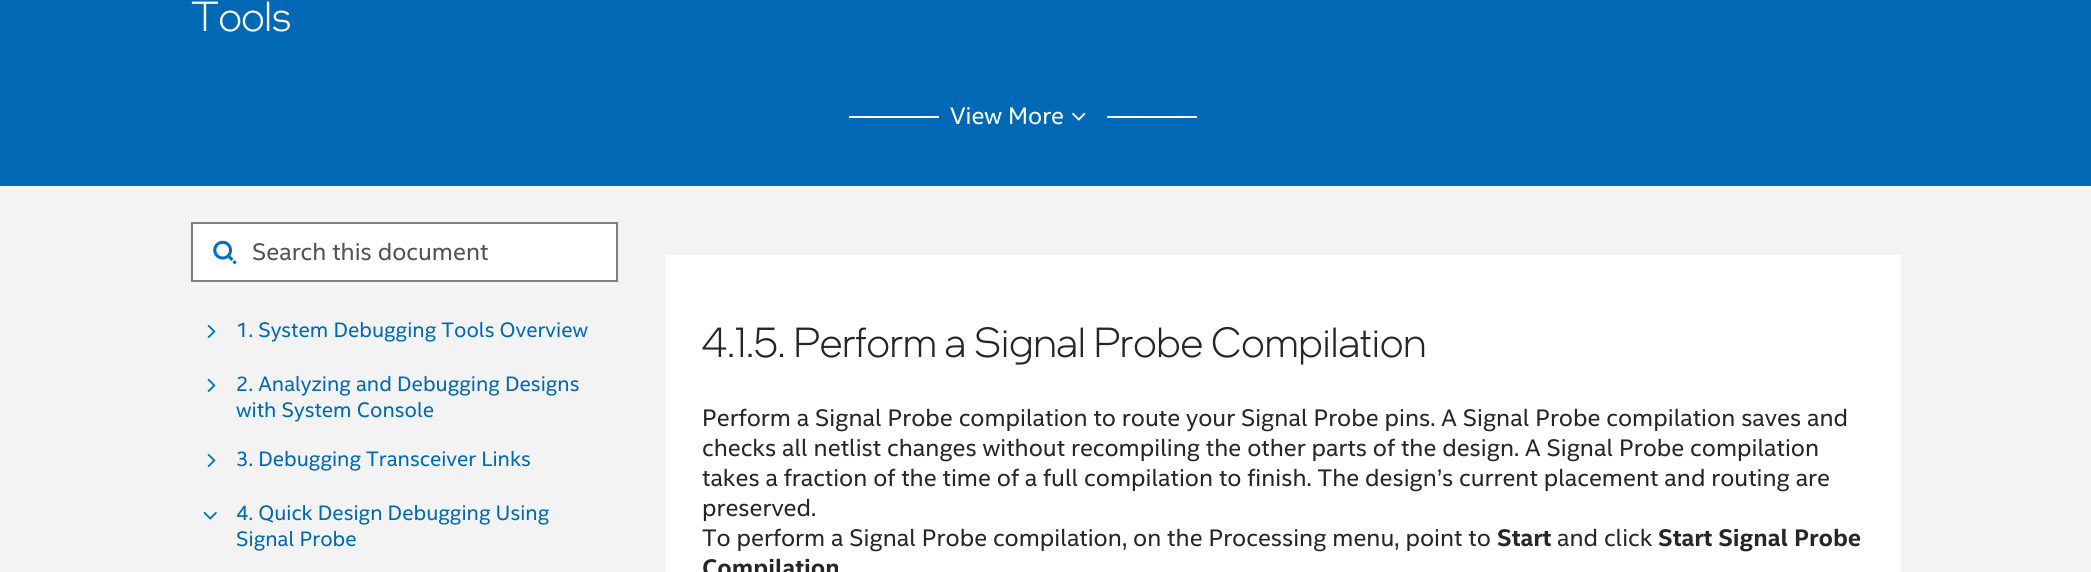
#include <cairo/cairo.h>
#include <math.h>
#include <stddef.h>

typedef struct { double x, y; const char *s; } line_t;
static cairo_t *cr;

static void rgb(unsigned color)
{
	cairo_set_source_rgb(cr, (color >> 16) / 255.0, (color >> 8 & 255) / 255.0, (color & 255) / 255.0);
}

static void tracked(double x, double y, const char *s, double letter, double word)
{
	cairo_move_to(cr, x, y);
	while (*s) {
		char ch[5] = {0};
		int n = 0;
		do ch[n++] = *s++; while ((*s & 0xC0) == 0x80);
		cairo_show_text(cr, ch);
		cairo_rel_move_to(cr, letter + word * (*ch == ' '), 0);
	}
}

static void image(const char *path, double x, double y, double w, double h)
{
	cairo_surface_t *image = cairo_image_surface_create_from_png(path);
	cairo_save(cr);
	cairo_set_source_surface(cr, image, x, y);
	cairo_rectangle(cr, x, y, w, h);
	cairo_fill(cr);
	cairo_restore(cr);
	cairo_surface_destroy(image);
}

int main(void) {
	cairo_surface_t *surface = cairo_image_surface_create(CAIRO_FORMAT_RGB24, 2091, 572);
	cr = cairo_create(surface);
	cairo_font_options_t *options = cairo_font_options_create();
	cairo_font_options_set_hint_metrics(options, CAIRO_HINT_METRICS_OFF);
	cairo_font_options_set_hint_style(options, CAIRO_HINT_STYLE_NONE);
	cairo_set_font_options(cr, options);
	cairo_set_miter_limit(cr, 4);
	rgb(0x0068b5);
	cairo_paint(cr);
	rgb(0xffffff);
	cairo_rectangle(cr, 849, 116, 90, 2);
	cairo_fill(cr);
	image("img/1.png", 1072, 112, 14, 9);
	cairo_rectangle(cr, 1107, 116, 90, 2);
	cairo_fill(cr);
	rgb(0xf3f3f3);
	cairo_rectangle(cr, 0, 186, 2091, 386);
	cairo_fill(cr);
	rgb(0xffffff);
	cairo_rectangle(cr, 192, 223, 425, 58);
	cairo_fill_preserve(cr);
	rgb(0x808080);
	cairo_stroke(cr);
	image("img/2.png", 213, 240, 24, 25);
	image("img/3.png", 207, 324, 9, 15);
	image("img/3.png", 207, 378, 9, 15);
	image("img/3.png", 207, 453, 9, 15);
	image("img/4.png", 203, 511, 14, 9);
	rgb(0xffffff);
	cairo_rectangle(cr, 666, 255, 1235, 317);
	cairo_fill(cr);
	cairo_select_font_face(cr, "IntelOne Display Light", CAIRO_FONT_SLANT_NORMAL, CAIRO_FONT_WEIGHT_NORMAL);
	cairo_set_font_size(cr, 42);
	tracked(191, 31, "Tools", -0.5, 0);
	cairo_select_font_face(cr, "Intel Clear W", CAIRO_FONT_SLANT_NORMAL, CAIRO_FONT_WEIGHT_NORMAL);
	cairo_set_font_size(cr, 24);
	cairo_move_to(cr, 950, 124);
	cairo_show_text(cr, "View More");
	rgb(0x525252);
	cairo_move_to(cr, 252, 260);
	cairo_show_text(cr, "Search this document");
	cairo_set_font_size(cr, 21);
	rgb(0x0068b5);
	{
		static const line_t items[] = {
			{236, 337, "1. System Debugging Tools Overview"},
			{236, 391, "2. Analyzing and Debugging Designs"},
			{236, 417, "with System Console"},
			{236, 466, "3. Debugging Transceiver Links"},
			{236, 520, "4. Quick Design Debugging Using"},
			{236, 546, "Signal Probe"},
		};
		for (size_t i = 0; i < sizeof items / sizeof *items; i++) {
			cairo_move_to(cr, items[i].x, items[i].y);
			cairo_show_text(cr, items[i].s);
		}
	}
	cairo_select_font_face(cr, "IntelOne Display Light", CAIRO_FONT_SLANT_NORMAL, CAIRO_FONT_WEIGHT_NORMAL);
	cairo_set_font_size(cr, 42);
	rgb(0x262626);
	cairo_move_to(cr, 702, 357);
	cairo_show_text(cr, "4.1.5. Perform a Signal Probe Compilation");
	cairo_select_font_face(cr, "Intel Clear W", CAIRO_FONT_SLANT_NORMAL, CAIRO_FONT_WEIGHT_NORMAL);
	cairo_set_font_size(cr, 24);
	{
		static const line_t items[] = {
			{702, 426, "Perform a Signal Probe compilation to route your Signal Probe pins. A Signal Probe compilation saves and"},
			{702, 456, "checks all netlist changes without recompiling the other parts of the design. A Signal Probe compilation"},
			{702, 486, "takes a fraction of the time of a full compilation to finish. The design’s current placement and routing are"},
			{702, 516, "preserved."},
			{702, 546, "To perform a Signal Probe compilation, on the Processing menu, point to"},
		};
		for (size_t i = 0; i < sizeof items / sizeof *items; i++) {
			cairo_move_to(cr, items[i].x, items[i].y);
			cairo_show_text(cr, items[i].s);
		}
	}
	cairo_select_font_face(cr, "Intel Clear W", CAIRO_FONT_SLANT_NORMAL, CAIRO_FONT_WEIGHT_BOLD);
	cairo_move_to(cr, 1497, 546);
	cairo_show_text(cr, "Start");
	cairo_select_font_face(cr, "Intel Clear W", CAIRO_FONT_SLANT_NORMAL, CAIRO_FONT_WEIGHT_NORMAL);
	cairo_move_to(cr, 1557, 546);
	cairo_show_text(cr, "and click");
	cairo_select_font_face(cr, "Intel Clear W", CAIRO_FONT_SLANT_NORMAL, CAIRO_FONT_WEIGHT_BOLD);
	cairo_move_to(cr, 1658, 546);
	cairo_show_text(cr, "Start Signal Probe");
	cairo_move_to(cr, 702, 576);
	cairo_show_text(cr, "Compilation");
	cairo_surface_write_to_png(surface, "page.png");
	cairo_font_options_destroy(options);
	cairo_destroy(cr);
	cairo_surface_destroy(surface);
	return 0;
}
